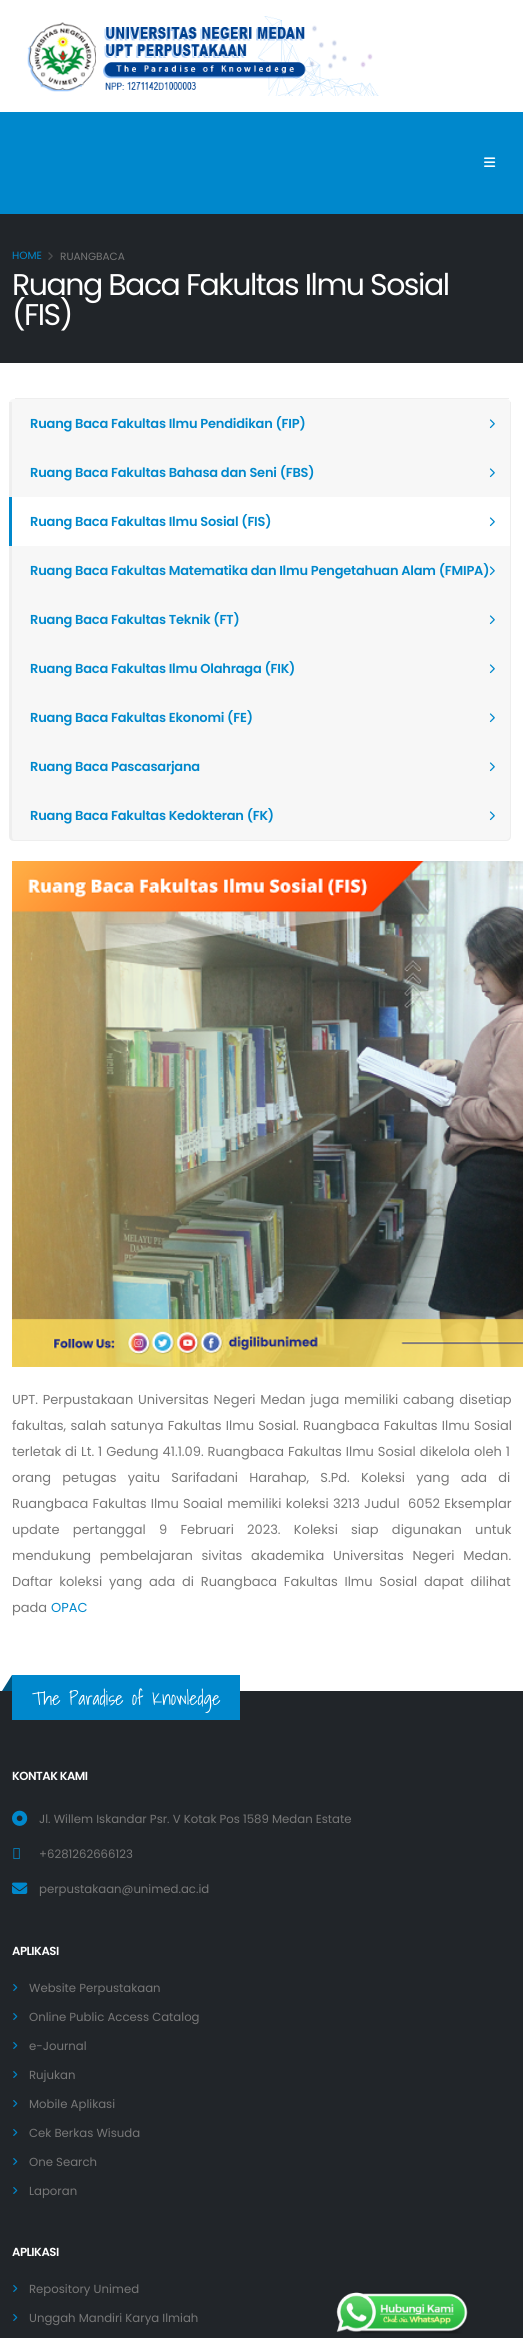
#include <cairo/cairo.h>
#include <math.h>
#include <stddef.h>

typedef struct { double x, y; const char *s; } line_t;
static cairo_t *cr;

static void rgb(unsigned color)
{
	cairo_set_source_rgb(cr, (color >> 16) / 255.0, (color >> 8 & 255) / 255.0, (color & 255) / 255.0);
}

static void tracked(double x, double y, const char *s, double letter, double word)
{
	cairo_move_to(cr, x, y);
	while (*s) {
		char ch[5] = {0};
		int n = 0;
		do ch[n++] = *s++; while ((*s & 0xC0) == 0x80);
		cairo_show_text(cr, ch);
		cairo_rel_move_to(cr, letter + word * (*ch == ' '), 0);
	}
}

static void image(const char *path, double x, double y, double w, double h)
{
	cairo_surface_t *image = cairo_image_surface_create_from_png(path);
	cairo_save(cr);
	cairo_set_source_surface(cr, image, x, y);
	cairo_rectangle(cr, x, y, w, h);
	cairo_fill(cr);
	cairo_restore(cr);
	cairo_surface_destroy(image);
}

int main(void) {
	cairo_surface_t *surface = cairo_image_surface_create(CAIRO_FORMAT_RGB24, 523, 2338);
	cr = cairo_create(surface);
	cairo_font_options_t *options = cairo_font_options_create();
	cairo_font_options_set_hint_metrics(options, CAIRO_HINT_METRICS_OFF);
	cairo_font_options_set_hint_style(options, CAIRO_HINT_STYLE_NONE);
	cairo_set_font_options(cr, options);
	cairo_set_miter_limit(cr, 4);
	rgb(0xffffff);
	cairo_paint(cr);
	image("img/1.png", 27, 16, 352, 80);
	rgb(0x0088cc);
	cairo_rectangle(cr, 0, 112, 523, 102);
	cairo_fill(cr);
	image("img/2.png", 484, 157, 12, 10);
	rgb(0x212529);
	cairo_rectangle(cr, 0, 214, 523, 149);
	cairo_fill(cr);
	image("img/3.png", 48, 252, 5, 8);
	rgb(0xeeeeee);
	cairo_rectangle(cr, 15, 398, 494, 1);
	cairo_fill(cr);
	rgb(0xf7f7f7);
	cairo_new_path(cr);
	cairo_move_to(cr, 14, 399);
	cairo_line_to(cr, 506, 399);
	cairo_curve_to(cr, 509, 399, 511, 401, 511, 404);
	cairo_line_to(cr, 511, 448);
	cairo_line_to(cr, 9, 448);
	cairo_line_to(cr, 9, 404);
	cairo_curve_to(cr, 9, 401, 11, 399, 14, 399);
	cairo_close_path(cr);
	cairo_fill(cr);
	rgb(0xeeeeee);
	cairo_rectangle(cr, 510, 402, 1, 389);
	cairo_fill(cr);
	cairo_rectangle(cr, 9, 402, 3, 95);
	cairo_fill(cr);
	image("img/4.png", 489, 419, 6, 10);
	rgb(0xf7f7f7);
	cairo_rectangle(cr, 12, 448, 498, 49);
	cairo_fill(cr);
	image("img/4.png", 489, 468, 6, 10);
	rgb(0x0088cc);
	cairo_rectangle(cr, 9, 497, 3, 49);
	cairo_fill(cr);
	image("img/5.png", 489, 517, 6, 10);
	rgb(0xf7f7f7);
	cairo_rectangle(cr, 12, 546, 498, 245);
	cairo_fill(cr);
	rgb(0xeeeeee);
	cairo_rectangle(cr, 9, 546, 3, 245);
	cairo_fill(cr);
	image("img/4.png", 489, 566, 6, 10);
	image("img/4.png", 489, 615, 6, 10);
	image("img/4.png", 489, 664, 6, 10);
	image("img/4.png", 489, 713, 6, 10);
	image("img/4.png", 489, 762, 6, 10);
	rgb(0xf7f7f7);
	cairo_new_path(cr);
	cairo_move_to(cr, 9, 791);
	cairo_line_to(cr, 511, 791);
	cairo_line_to(cr, 511, 836);
	cairo_curve_to(cr, 511, 839, 509, 841, 506, 841);
	cairo_line_to(cr, 14, 841);
	cairo_curve_to(cr, 11, 841, 9, 839, 9, 836);
	cairo_close_path(cr);
	cairo_fill(cr);
	rgb(0xeeeeee);
	cairo_set_fill_rule(cr, CAIRO_FILL_RULE_EVEN_ODD);
	cairo_new_path(cr);
	cairo_move_to(cr, 9, 791);
	cairo_line_to(cr, 511, 791);
	cairo_line_to(cr, 511, 836);
	cairo_curve_to(cr, 511, 839, 509, 841, 506, 841);
	cairo_line_to(cr, 14, 841);
	cairo_curve_to(cr, 11, 841, 9, 839, 9, 836);
	cairo_close_path(cr);
	cairo_move_to(cr, 12, 791);
	cairo_line_to(cr, 510, 791);
	cairo_line_to(cr, 510, 836);
	cairo_curve_to(cr, 510, 838, 508, 840, 506, 840);
	cairo_line_to(cr, 14, 840);
	cairo_curve_to(cr, 13, 840, 12, 838, 12, 836);
	cairo_close_path(cr);
	cairo_fill(cr);
	image("img/4.png", 489, 811, 6, 10);
	image("img/6.png", 12, 861, 511, 506);
	rgb(0x212529);
	cairo_rectangle(cr, 0, 1691, 523, 647);
	cairo_fill(cr);
	rgb(0x0088cc);
	cairo_rectangle(cr, 12, 1675, 228, 45);
	cairo_fill(cr);
	rgb(0x005580);
	cairo_set_fill_rule(cr, CAIRO_FILL_RULE_WINDING);
	cairo_new_path(cr);
	cairo_move_to(cr, 12, 1675);
	cairo_line_to(cr, 12, 1691);
	cairo_line_to(cr, 2, 1691);
	cairo_close_path(cr);
	cairo_fill(cr);
	image("img/7.png", 12, 1810, 16, 16);
	image("img/8.png", 13, 1848, 7, 11);
	image("img/9.png", 12, 1882, 16, 12);
	image("img/10.png", 13, 1984, 5, 7);
	image("img/10.png", 13, 2013, 5, 7);
	image("img/10.png", 13, 2042, 5, 7);
	image("img/10.png", 13, 2071, 5, 7);
	image("img/10.png", 13, 2100, 5, 7);
	image("img/10.png", 13, 2129, 5, 7);
	image("img/10.png", 13, 2158, 5, 7);
	image("img/10.png", 13, 2187, 5, 7);
	image("img/10.png", 13, 2285, 5, 7);
	image("img/10.png", 13, 2314, 5, 7);
	image("img/11.png", 336, 2292, 132, 42);
	cairo_select_font_face(cr, "Poppins", CAIRO_FONT_SLANT_NORMAL, CAIRO_FONT_WEIGHT_NORMAL);
	cairo_set_font_size(cr, 10.5);
	rgb(0x0088cc);
	cairo_move_to(cr, 12, 259);
	cairo_show_text(cr, "HOME");
	rgb(0x777777);
	cairo_move_to(cr, 60, 260);
	cairo_show_text(cr, "RUANGBACA");
	cairo_set_font_size(cr, 30);
	rgb(0xffffff);
	tracked(12, 295, "Ruang Baca Fakultas Ilmu Sosial", -1.5, 0);
	tracked(12, 325, "(FIS)", -1.5, 0);
	cairo_select_font_face(cr, "Poppins SemiBold", CAIRO_FONT_SLANT_NORMAL, CAIRO_FONT_WEIGHT_NORMAL);
	cairo_set_font_size(cr, 13);
	rgb(0x0088cc);
	{
		static const line_t items[] = {
			{30, 428, "Ruang Baca Fakultas Ilmu Pendidikan (FIP)"},
			{30, 477, "Ruang Baca Fakultas Bahasa dan Seni (FBS)"},
			{30, 526, "Ruang Baca Fakultas Ilmu Sosial (FIS)"},
			{30, 575, "Ruang Baca Fakultas Matematika dan Ilmu Pengetahuan Alam (FMIPA)"},
			{30, 624, "Ruang Baca Fakultas Teknik (FT)"},
			{30, 673, "Ruang Baca Fakultas Ilmu Olahraga (FIK)"},
			{30, 722, "Ruang Baca Fakultas Ekonomi (FE)"},
			{30, 771, "Ruang Baca Pascasarjana"},
			{30, 820, "Ruang Baca Fakultas Kedokteran (FK)"},
		};
		for (size_t i = 0; i < sizeof items / sizeof *items; i++) {
			tracked(items[i].x, items[i].y, items[i].s, -0.2, 0);
		}
	}
	cairo_select_font_face(cr, "Poppins", CAIRO_FONT_SLANT_NORMAL, CAIRO_FONT_WEIGHT_NORMAL);
	rgb(0x777777);
	tracked(12, 1404, "UPT. Perpustakaan Universitas Negeri Medan juga memiliki cabang disetiap", 0, 1.25);
	tracked(12, 1430, "fakultas, salah satunya Fakultas Ilmu Sosial. Ruangbaca Fakultas Ilmu Sosial", 0, 0.75);
	tracked(12, 1456, "terletak di Lt. 1 Gedung 41.1.09. Ruangbaca Fakultas Ilmu Sosial dikelola oleh 1", 0, 0.5);
	tracked(12, 1482, "orang petugas yaitu Sarifadani Harahap, S.Pd. Koleksi yang ada di", 0, 7.75);
	tracked(12, 1508, "Ruangbaca Fakultas Ilmu Soaial memiliki koleksi 3213 Judul  6052 Eksemplar", 0, 0.75);
	tracked(12, 1534, "update pertanggal 9 Februari 2023. Koleksi siap digunakan untuk", 0, 9.75);
	tracked(12, 1560, "mendukung pembelajaran sivitas akademika Universitas Negeri Medan.", 0, 5.25);
	tracked(12, 1586, "Daftar koleksi yang ada di Ruangbaca Fakultas Ilmu Sosial dapat dilihat", 0, 3.25);
	cairo_move_to(cr, 12, 1612);
	cairo_show_text(cr, "pada");
	rgb(0x0088cc);
	cairo_move_to(cr, 51, 1612);
	cairo_show_text(cr, "OPAC");
	cairo_select_font_face(cr, "Shadows Into Light Light", CAIRO_FONT_SLANT_NORMAL, CAIRO_FONT_WEIGHT_NORMAL);
	cairo_set_font_size(cr, 18.75);
	rgb(0xffffff);
	cairo_move_to(cr, 32, 1705);
	cairo_show_text(cr, "The Paradise of Knowledge");
	cairo_select_font_face(cr, "Poppins SemiBold", CAIRO_FONT_SLANT_NORMAL, CAIRO_FONT_WEIGHT_NORMAL);
	cairo_set_font_size(cr, 11.7);
	tracked(12, 1780, "KONTAK KAMI", -0.5, 0);
	cairo_select_font_face(cr, "Poppins", CAIRO_FONT_SLANT_NORMAL, CAIRO_FONT_WEIGHT_NORMAL);
	rgb(0x777777);
	{
		static const line_t items[] = {
			{39, 1823, "Jl. Willem Iskandar Psr. V Kotak Pos 1589 Medan Estate"},
			{39, 1858, "+6281262666123"},
			{39, 1893, "perpustakaan@unimed.ac.id"},
		};
		for (size_t i = 0; i < sizeof items / sizeof *items; i++) {
			cairo_move_to(cr, items[i].x, items[i].y);
			cairo_show_text(cr, items[i].s);
		}
	}
	cairo_select_font_face(cr, "Poppins SemiBold", CAIRO_FONT_SLANT_NORMAL, CAIRO_FONT_WEIGHT_NORMAL);
	rgb(0xffffff);
	tracked(12, 1955, "APLIKASI", -0.5, 0);
	cairo_select_font_face(cr, "Poppins", CAIRO_FONT_SLANT_NORMAL, CAIRO_FONT_WEIGHT_NORMAL);
	rgb(0x777777);
	{
		static const line_t items[] = {
			{29, 1992, "Website Perpustakaan"},
			{29, 2021, "Online Public Access Catalog"},
			{29, 2050, "e-Journal"},
			{29, 2079, "Rujukan"},
			{29, 2108, "Mobile Aplikasi"},
			{29, 2137, "Cek Berkas Wisuda"},
			{29, 2166, "One Search"},
			{29, 2195, "Laporan"},
		};
		for (size_t i = 0; i < sizeof items / sizeof *items; i++) {
			cairo_move_to(cr, items[i].x, items[i].y);
			cairo_show_text(cr, items[i].s);
		}
	}
	cairo_select_font_face(cr, "Poppins SemiBold", CAIRO_FONT_SLANT_NORMAL, CAIRO_FONT_WEIGHT_NORMAL);
	rgb(0xffffff);
	tracked(12, 2256, "APLIKASI", -0.5, 0);
	cairo_select_font_face(cr, "Poppins", CAIRO_FONT_SLANT_NORMAL, CAIRO_FONT_WEIGHT_NORMAL);
	rgb(0x777777);
	cairo_move_to(cr, 29, 2293);
	cairo_show_text(cr, "Repository Unimed");
	cairo_move_to(cr, 29, 2322);
	cairo_show_text(cr, "Unggah Mandiri Karya Ilmiah");
	cairo_surface_write_to_png(surface, "page.png");
	cairo_font_options_destroy(options);
	cairo_destroy(cr);
	cairo_surface_destroy(surface);
	return 0;
}
